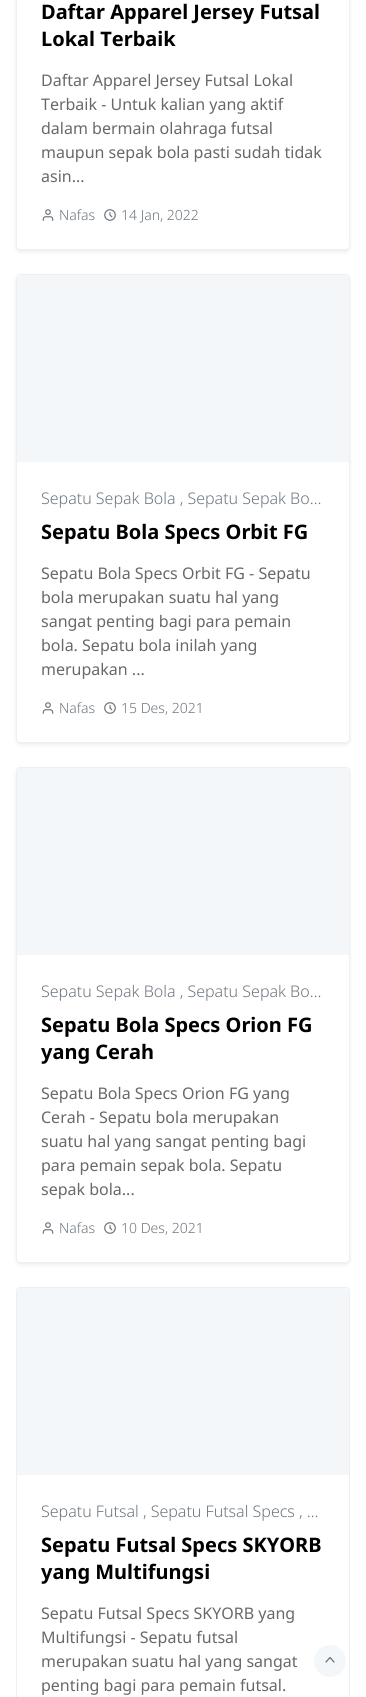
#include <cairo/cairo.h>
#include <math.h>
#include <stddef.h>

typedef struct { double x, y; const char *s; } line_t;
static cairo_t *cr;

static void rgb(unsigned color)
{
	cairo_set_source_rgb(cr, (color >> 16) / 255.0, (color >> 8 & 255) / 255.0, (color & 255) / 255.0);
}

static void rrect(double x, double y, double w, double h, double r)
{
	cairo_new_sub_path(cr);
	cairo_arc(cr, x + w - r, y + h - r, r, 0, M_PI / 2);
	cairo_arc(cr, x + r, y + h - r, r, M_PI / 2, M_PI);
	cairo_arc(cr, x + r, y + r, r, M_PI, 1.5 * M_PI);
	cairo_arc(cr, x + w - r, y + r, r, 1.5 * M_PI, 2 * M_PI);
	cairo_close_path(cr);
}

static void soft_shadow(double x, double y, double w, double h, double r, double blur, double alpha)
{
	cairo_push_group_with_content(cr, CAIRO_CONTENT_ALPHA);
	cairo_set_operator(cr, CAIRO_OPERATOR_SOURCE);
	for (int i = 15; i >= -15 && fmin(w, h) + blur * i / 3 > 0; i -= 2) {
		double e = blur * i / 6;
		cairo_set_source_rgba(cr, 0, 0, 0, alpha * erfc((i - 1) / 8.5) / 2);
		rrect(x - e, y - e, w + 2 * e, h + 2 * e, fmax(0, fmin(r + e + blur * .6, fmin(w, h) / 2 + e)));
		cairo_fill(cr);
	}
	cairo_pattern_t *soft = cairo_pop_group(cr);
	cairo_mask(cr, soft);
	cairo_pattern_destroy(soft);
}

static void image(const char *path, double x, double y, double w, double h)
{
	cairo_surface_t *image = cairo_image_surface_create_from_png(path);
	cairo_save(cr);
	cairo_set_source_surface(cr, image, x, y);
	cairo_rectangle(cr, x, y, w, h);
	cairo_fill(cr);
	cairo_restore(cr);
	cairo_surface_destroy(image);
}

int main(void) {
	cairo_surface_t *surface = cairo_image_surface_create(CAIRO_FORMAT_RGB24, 366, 1697);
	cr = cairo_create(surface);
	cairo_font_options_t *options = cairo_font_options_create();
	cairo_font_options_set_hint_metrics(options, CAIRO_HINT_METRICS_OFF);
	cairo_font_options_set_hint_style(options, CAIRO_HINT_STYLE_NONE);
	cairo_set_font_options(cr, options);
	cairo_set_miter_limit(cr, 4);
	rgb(0xffffff);
	cairo_paint(cr);
	rgb(0x000000);
	soft_shadow(16, -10, 334, 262, 4, 2, 0.07);
	rgb(0xffffff);
	rrect(16.5, -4.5, 333, 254, 3.5);
	cairo_fill_preserve(cr);
	rgb(0xefefef);
	cairo_set_line_width(cr, 1);
	cairo_stroke(cr);
	image("img/1.png", 42, 209, 12, 12);
	image("img/2.png", 104, 209, 12, 12);
	rgb(0x000000);
	soft_shadow(16, 276, 334, 469, 4, 2, 0.07);
	rgb(0xffffff);
	rrect(16.5, 274.5, 333, 468, 3.5);
	cairo_fill_preserve(cr);
	rgb(0xefefef);
	cairo_stroke(cr);
	rgb(0xf3f7f9);
	cairo_new_path(cr);
	cairo_move_to(cr, 20, 275);
	cairo_line_to(cr, 346, 275);
	cairo_curve_to(cr, 347.5, 275, 349, 276.5, 349, 278);
	cairo_line_to(cr, 349, 462);
	cairo_line_to(cr, 17, 462);
	cairo_line_to(cr, 17, 278);
	cairo_curve_to(cr, 17, 276.5, 18.5, 275, 20, 275);
	cairo_close_path(cr);
	cairo_fill(cr);
	image("img/1.png", 42, 702, 12, 12);
	image("img/2.png", 104, 702, 12, 12);
	rgb(0x000000);
	soft_shadow(16, 769, 334, 496, 4, 2, 0.07);
	rgb(0xffffff);
	rrect(16.5, 767.5, 333, 495, 3.5);
	cairo_fill_preserve(cr);
	rgb(0xefefef);
	cairo_stroke(cr);
	rgb(0xf3f7f9);
	cairo_new_path(cr);
	cairo_move_to(cr, 20, 768);
	cairo_line_to(cr, 346, 768);
	cairo_curve_to(cr, 347.5, 768, 349, 769.5, 349, 771);
	cairo_line_to(cr, 349, 955);
	cairo_line_to(cr, 17, 955);
	cairo_line_to(cr, 17, 771);
	cairo_curve_to(cr, 17, 769.5, 18.5, 768, 20, 768);
	cairo_close_path(cr);
	cairo_fill(cr);
	image("img/1.png", 42, 1222, 12, 12);
	image("img/2.png", 104, 1222, 12, 12);
	rrect(16.5, 1287.5, 333, 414, 3.5);
	rgb(0xefefef);
	cairo_stroke(cr);
	rgb(0xf3f7f9);
	cairo_new_path(cr);
	cairo_move_to(cr, 20, 1288);
	cairo_line_to(cr, 346, 1288);
	cairo_curve_to(cr, 347.5, 1288, 349, 1289.5, 349, 1291);
	cairo_line_to(cr, 349, 1475);
	cairo_line_to(cr, 17, 1475);
	cairo_line_to(cr, 17, 1291);
	cairo_curve_to(cr, 17, 1289.5, 18.5, 1288, 20, 1288);
	cairo_close_path(cr);
	cairo_fill(cr);
	cairo_arc(cr, 330, 1661, 15.5, 0, 2 * M_PI);
	cairo_fill_preserve(cr);
	cairo_stroke(cr);
	cairo_new_path(cr);
	cairo_move_to(cr, 326, 1662);
	cairo_line_to(cr, 330, 1657.5);
	cairo_line_to(cr, 334, 1662);
	rgb(0x686868);
	cairo_set_line_width(cr, 1.2);
	cairo_set_line_cap(cr, CAIRO_LINE_CAP_ROUND);
	cairo_set_line_join(cr, CAIRO_LINE_JOIN_ROUND);
	cairo_stroke(cr);
	cairo_select_font_face(cr, "Noto Sans", CAIRO_FONT_SLANT_NORMAL, CAIRO_FONT_WEIGHT_BOLD);
	cairo_set_font_size(cr, 20);
	rgb(0x000000);
	cairo_move_to(cr, 41, 19);
	cairo_show_text(cr, "Daftar Apparel Jersey Futsal");
	cairo_move_to(cr, 41, 46);
	cairo_show_text(cr, "Lokal Terbaik");
	cairo_select_font_face(cr, "Noto Sans", CAIRO_FONT_SLANT_NORMAL, CAIRO_FONT_WEIGHT_NORMAL);
	cairo_set_font_size(cr, 16);
	rgb(0x686868);
	{
		static const line_t items[] = {
			{41, 86, "Daftar Apparel Jersey Futsal Lokal"},
			{41, 110, "Terbaik - Untuk kalian yang aktif"},
			{41, 134, "dalam bermain olahraga futsal"},
			{41, 158, "maupun sepak bola pasti sudah tidak"},
			{41, 182, "asin..."},
		};
		for (size_t i = 0; i < sizeof items / sizeof *items; i++) {
			cairo_move_to(cr, items[i].x, items[i].y);
			cairo_show_text(cr, items[i].s);
		}
	}
	cairo_select_font_face(cr, "Noto Sans Light", CAIRO_FONT_SLANT_NORMAL, CAIRO_FONT_WEIGHT_NORMAL);
	cairo_set_font_size(cr, 14);
	rgb(0x6c757d);
	cairo_move_to(cr, 59, 220);
	cairo_show_text(cr, "Nafas");
	cairo_move_to(cr, 121, 220);
	cairo_show_text(cr, "14 Jan, 2022");
	cairo_set_font_size(cr, 16);
	cairo_move_to(cr, 41, 504);
	cairo_show_text(cr, "Sepatu Sepak Bola , Sepatu Sepak Bo…");
	cairo_select_font_face(cr, "Noto Sans", CAIRO_FONT_SLANT_NORMAL, CAIRO_FONT_WEIGHT_BOLD);
	cairo_set_font_size(cr, 20);
	rgb(0x000000);
	cairo_move_to(cr, 41, 539);
	cairo_show_text(cr, "Sepatu Bola Specs Orbit FG");
	cairo_select_font_face(cr, "Noto Sans", CAIRO_FONT_SLANT_NORMAL, CAIRO_FONT_WEIGHT_NORMAL);
	cairo_set_font_size(cr, 16);
	rgb(0x686868);
	{
		static const line_t items[] = {
			{41, 579, "Sepatu Bola Specs Orbit FG - Sepatu"},
			{41, 603, "bola merupakan suatu hal yang"},
			{41, 627, "sangat penting bagi para pemain"},
			{41, 651, "bola. Sepatu bola inilah yang"},
			{41, 675, "merupakan ..."},
		};
		for (size_t i = 0; i < sizeof items / sizeof *items; i++) {
			cairo_move_to(cr, items[i].x, items[i].y);
			cairo_show_text(cr, items[i].s);
		}
	}
	cairo_select_font_face(cr, "Noto Sans Light", CAIRO_FONT_SLANT_NORMAL, CAIRO_FONT_WEIGHT_NORMAL);
	cairo_set_font_size(cr, 14);
	rgb(0x6c757d);
	cairo_move_to(cr, 59, 713);
	cairo_show_text(cr, "Nafas");
	cairo_move_to(cr, 121, 713);
	cairo_show_text(cr, "15 Des, 2021");
	cairo_set_font_size(cr, 16);
	cairo_move_to(cr, 41, 997);
	cairo_show_text(cr, "Sepatu Sepak Bola , Sepatu Sepak Bo…");
	cairo_select_font_face(cr, "Noto Sans", CAIRO_FONT_SLANT_NORMAL, CAIRO_FONT_WEIGHT_BOLD);
	cairo_set_font_size(cr, 20);
	rgb(0x000000);
	cairo_move_to(cr, 41, 1032);
	cairo_show_text(cr, "Sepatu Bola Specs Orion FG");
	cairo_move_to(cr, 41, 1059);
	cairo_show_text(cr, "yang Cerah");
	cairo_select_font_face(cr, "Noto Sans", CAIRO_FONT_SLANT_NORMAL, CAIRO_FONT_WEIGHT_NORMAL);
	cairo_set_font_size(cr, 16);
	rgb(0x686868);
	{
		static const line_t items[] = {
			{41, 1099, "Sepatu Bola Specs Orion FG yang"},
			{41, 1123, "Cerah - Sepatu bola merupakan"},
			{41, 1147, "suatu hal yang sangat penting bagi"},
			{41, 1171, "para pemain sepak bola. Sepatu"},
			{41, 1195, "sepak bola..."},
		};
		for (size_t i = 0; i < sizeof items / sizeof *items; i++) {
			cairo_move_to(cr, items[i].x, items[i].y);
			cairo_show_text(cr, items[i].s);
		}
	}
	cairo_select_font_face(cr, "Noto Sans Light", CAIRO_FONT_SLANT_NORMAL, CAIRO_FONT_WEIGHT_NORMAL);
	cairo_set_font_size(cr, 14);
	rgb(0x6c757d);
	cairo_move_to(cr, 59, 1233);
	cairo_show_text(cr, "Nafas");
	cairo_move_to(cr, 121, 1233);
	cairo_show_text(cr, "10 Des, 2021");
	cairo_set_font_size(cr, 16);
	cairo_move_to(cr, 41, 1517);
	cairo_show_text(cr, "Sepatu Futsal , Sepatu Futsal Specs , …");
	cairo_select_font_face(cr, "Noto Sans", CAIRO_FONT_SLANT_NORMAL, CAIRO_FONT_WEIGHT_BOLD);
	cairo_set_font_size(cr, 20);
	rgb(0x000000);
	cairo_move_to(cr, 41, 1552);
	cairo_show_text(cr, "Sepatu Futsal Specs SKYORB");
	cairo_move_to(cr, 41, 1579);
	cairo_show_text(cr, "yang Multifungsi");
	cairo_select_font_face(cr, "Noto Sans", CAIRO_FONT_SLANT_NORMAL, CAIRO_FONT_WEIGHT_NORMAL);
	cairo_set_font_size(cr, 16);
	rgb(0x686868);
	{
		static const line_t items[] = {
			{41, 1619, "Sepatu Futsal Specs SKYORB yang"},
			{41, 1643, "Multifungsi - Sepatu futsal"},
			{41, 1667, "merupakan suatu hal yang sangat"},
			{41, 1691, "penting bagi para pemain futsal."},
		};
		for (size_t i = 0; i < sizeof items / sizeof *items; i++) {
			cairo_move_to(cr, items[i].x, items[i].y);
			cairo_show_text(cr, items[i].s);
		}
	}
	cairo_surface_write_to_png(surface, "page.png");
	cairo_font_options_destroy(options);
	cairo_destroy(cr);
	cairo_surface_destroy(surface);
	return 0;
}
